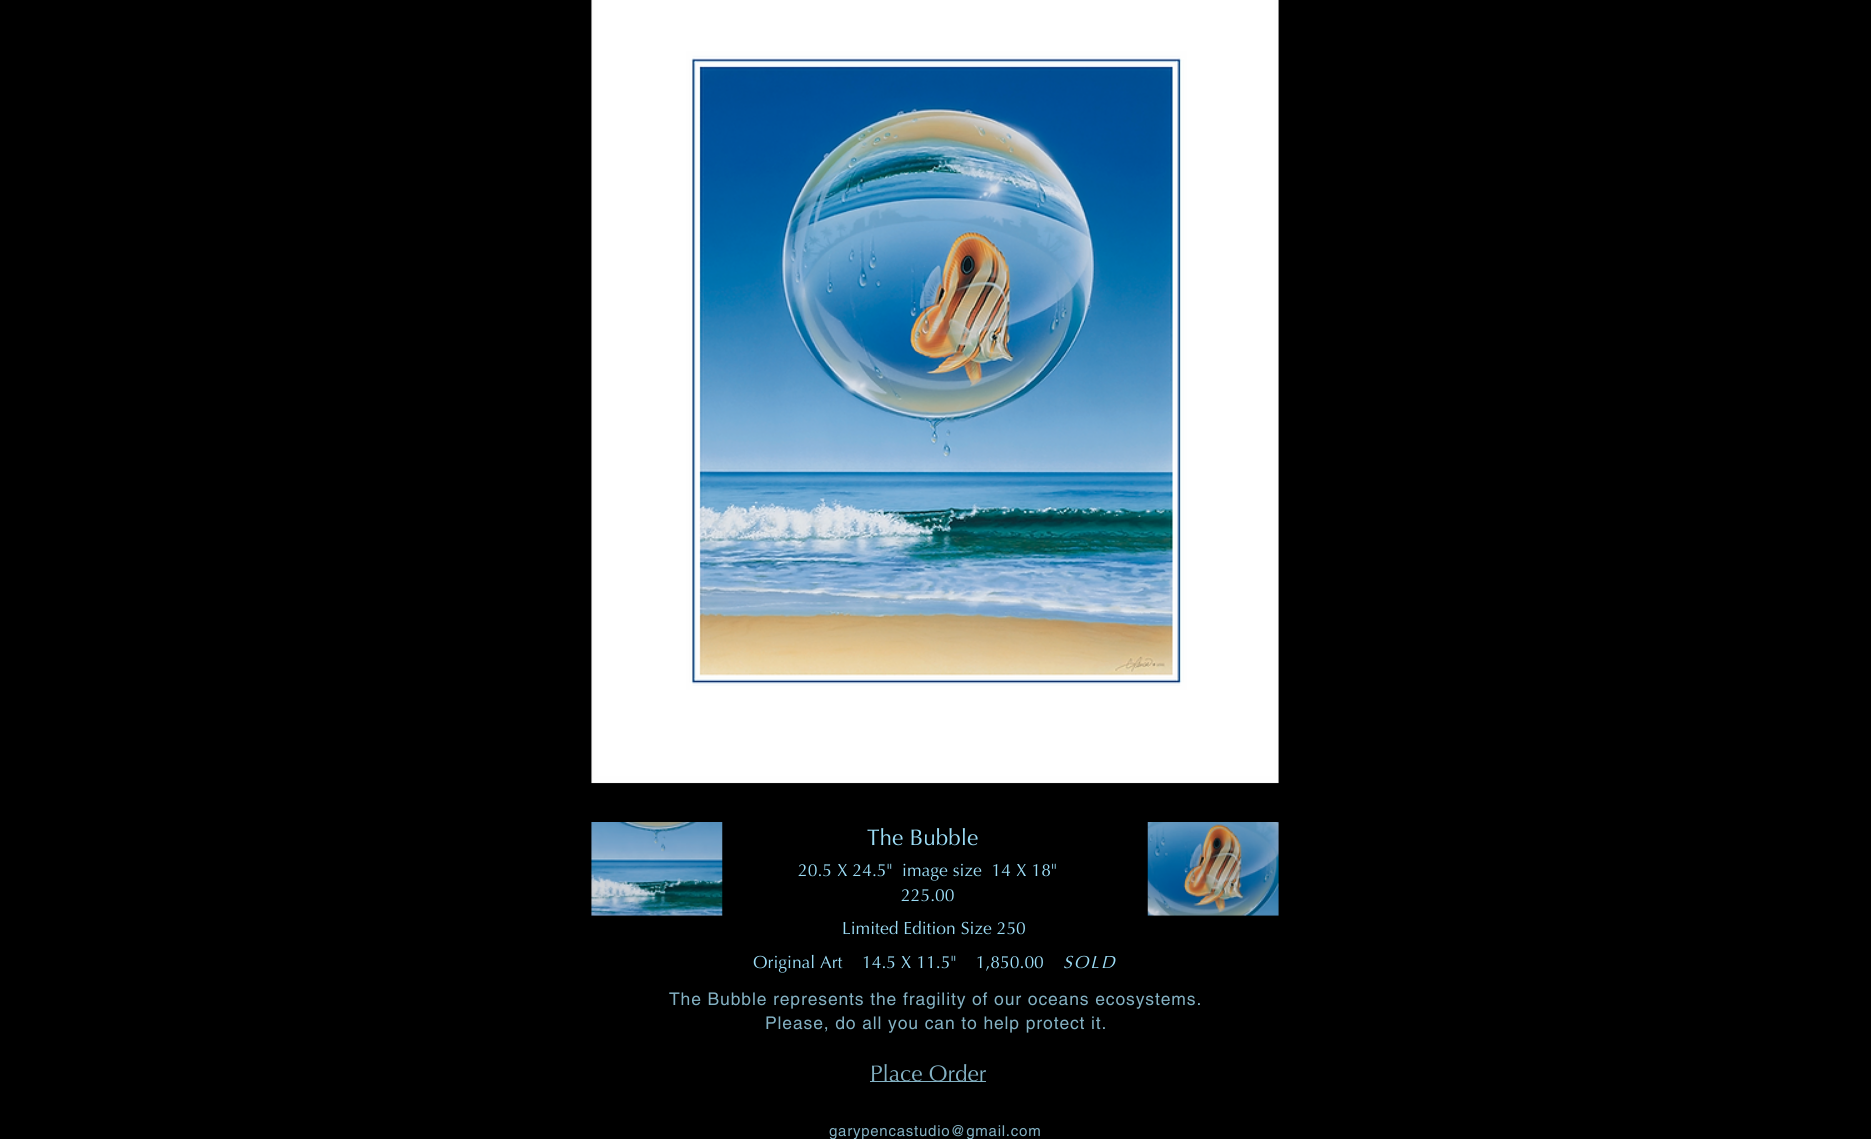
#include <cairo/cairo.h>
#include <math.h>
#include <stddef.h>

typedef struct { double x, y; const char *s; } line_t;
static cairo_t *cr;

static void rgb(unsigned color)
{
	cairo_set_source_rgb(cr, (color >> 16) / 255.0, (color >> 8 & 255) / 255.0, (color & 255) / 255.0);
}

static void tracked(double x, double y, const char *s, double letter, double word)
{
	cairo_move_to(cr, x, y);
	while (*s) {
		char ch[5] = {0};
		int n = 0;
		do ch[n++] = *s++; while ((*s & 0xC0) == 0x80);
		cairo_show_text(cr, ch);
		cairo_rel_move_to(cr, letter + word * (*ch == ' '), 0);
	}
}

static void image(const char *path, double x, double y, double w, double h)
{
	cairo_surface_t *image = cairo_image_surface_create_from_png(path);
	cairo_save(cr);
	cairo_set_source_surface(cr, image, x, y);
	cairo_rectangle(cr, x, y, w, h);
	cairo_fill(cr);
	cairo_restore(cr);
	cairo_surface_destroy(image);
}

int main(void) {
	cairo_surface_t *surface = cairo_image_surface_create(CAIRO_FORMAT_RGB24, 1871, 1139);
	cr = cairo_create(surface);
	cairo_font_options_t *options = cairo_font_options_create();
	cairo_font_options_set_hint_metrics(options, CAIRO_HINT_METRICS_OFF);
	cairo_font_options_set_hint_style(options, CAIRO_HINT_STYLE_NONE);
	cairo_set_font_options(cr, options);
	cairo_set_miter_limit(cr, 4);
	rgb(0x000000);
	cairo_paint(cr);
	image("img/1.png", 591, 0, 688, 784);
	image("img/2.png", 591, 822, 132, 94);
	image("img/3.png", 1147, 822, 132, 94);
	rgb(0x83b1c3);
	cairo_rectangle(cr, 870, 1081, 116, 1);
	cairo_fill(cr);
	cairo_select_font_face(cr, "Optima", CAIRO_FONT_SLANT_NORMAL, CAIRO_FONT_WEIGHT_NORMAL);
	cairo_set_font_size(cr, 22.5);
	rgb(0x9cddf6);
	cairo_move_to(cr, 867, 845);
	cairo_show_text(cr, "The Bubble");
	cairo_select_font_face(cr, "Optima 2", CAIRO_FONT_SLANT_NORMAL, CAIRO_FONT_WEIGHT_NORMAL);
	cairo_set_font_size(cr, 17.5);
	{
		static const line_t items[] = {
			{798, 876, "20.5 X 24.5\"  image size  14 X 18\""},
			{901, 901, "225.00"},
			{842, 934, "Limited Edition Size 250"},
			{753, 968, "Original Art    14.5 X 11.5\"    1,850.00"},
		};
		for (size_t i = 0; i < sizeof items / sizeof *items; i++) {
			cairo_move_to(cr, items[i].x, items[i].y);
			cairo_show_text(cr, items[i].s);
		}
	}
	cairo_select_font_face(cr, "Optima", CAIRO_FONT_SLANT_ITALIC, CAIRO_FONT_WEIGHT_NORMAL);
	tracked(1063, 968, "SOLD", 2, 0);
	cairo_select_font_face(cr, "helvetica", CAIRO_FONT_SLANT_NORMAL, CAIRO_FONT_WEIGHT_NORMAL);
	rgb(0x83b1c3);
	tracked(669, 1005, "The Bubble represents the fragility of our oceans ecosystems.", 0.88, 0);
	tracked(765, 1029, "Please, do all you can to help protect it.", 0.88, 0);
	cairo_select_font_face(cr, "Optima 2", CAIRO_FONT_SLANT_NORMAL, CAIRO_FONT_WEIGHT_NORMAL);
	cairo_set_font_size(cr, 22.5);
	cairo_move_to(cr, 870, 1081);
	cairo_show_text(cr, "Place Order");
	cairo_select_font_face(cr, "helvetica", CAIRO_FONT_SLANT_NORMAL, CAIRO_FONT_WEIGHT_NORMAL);
	cairo_set_font_size(cr, 15);
	tracked(829, 1136, "garypencastudio@gmail.com", 0.75, 0);
	cairo_surface_write_to_png(surface, "page.png");
	cairo_font_options_destroy(options);
	cairo_destroy(cr);
	cairo_surface_destroy(surface);
	return 0;
}
